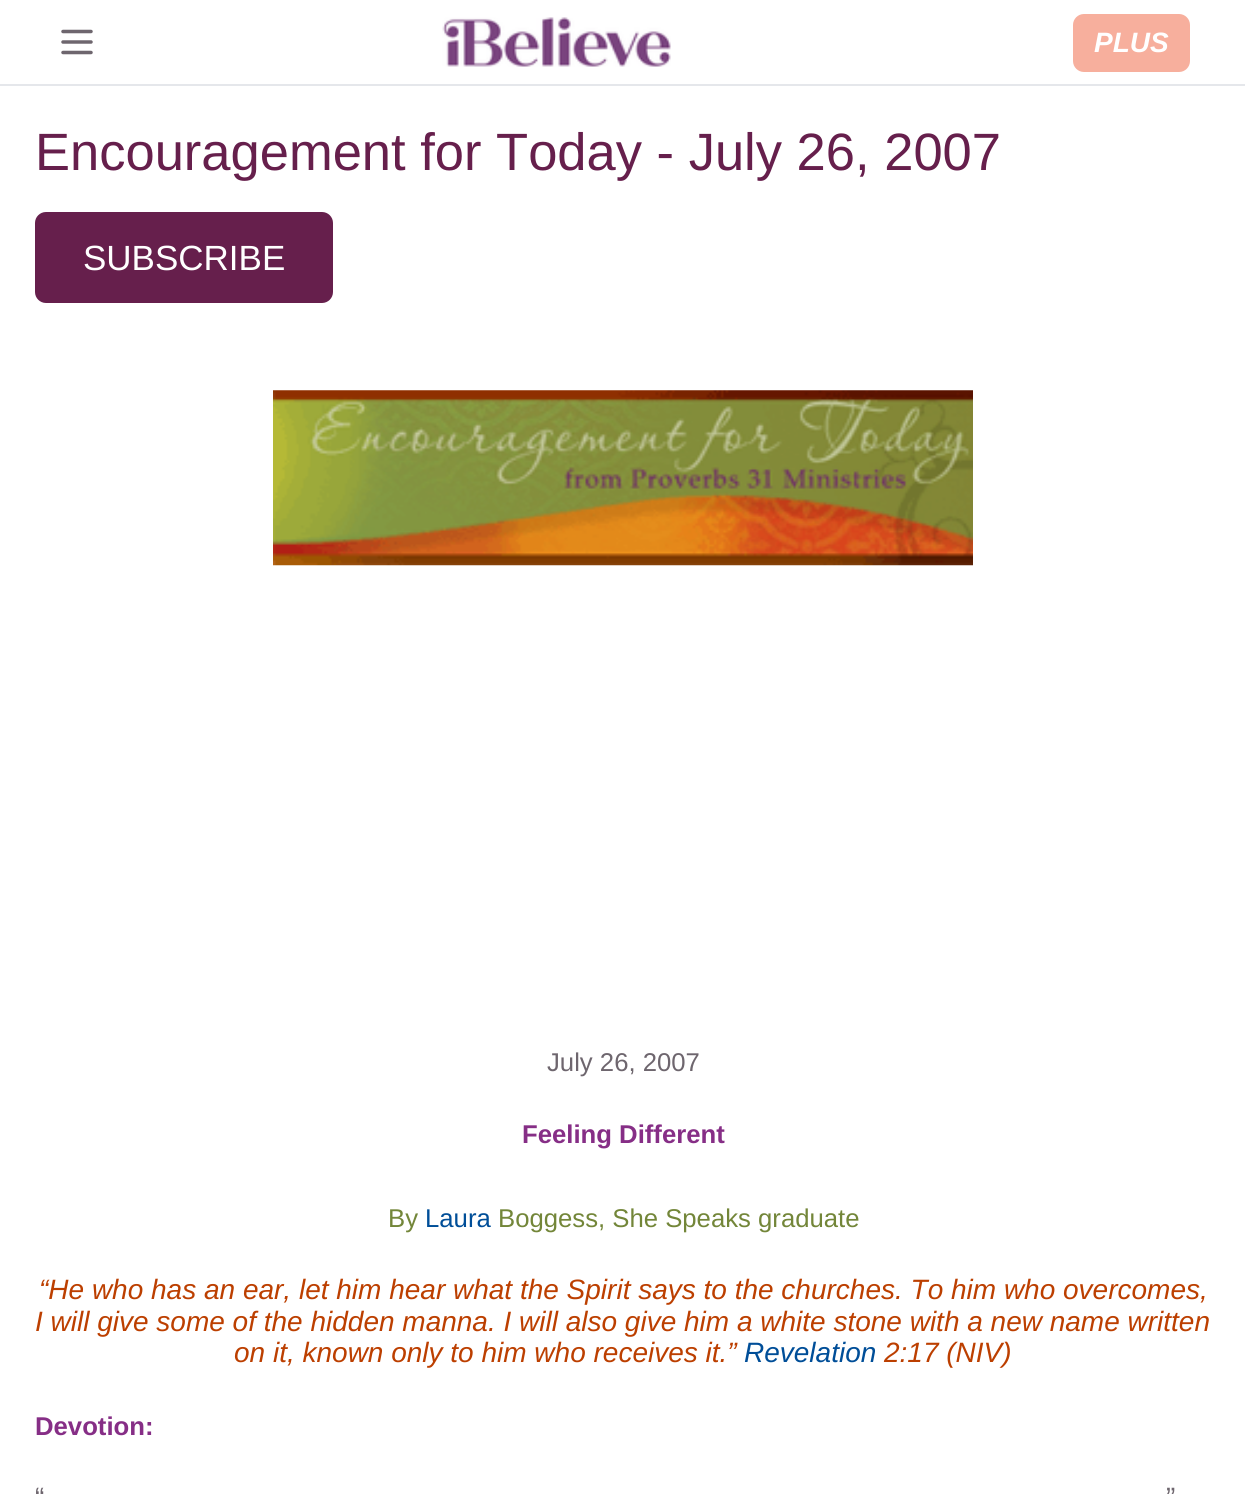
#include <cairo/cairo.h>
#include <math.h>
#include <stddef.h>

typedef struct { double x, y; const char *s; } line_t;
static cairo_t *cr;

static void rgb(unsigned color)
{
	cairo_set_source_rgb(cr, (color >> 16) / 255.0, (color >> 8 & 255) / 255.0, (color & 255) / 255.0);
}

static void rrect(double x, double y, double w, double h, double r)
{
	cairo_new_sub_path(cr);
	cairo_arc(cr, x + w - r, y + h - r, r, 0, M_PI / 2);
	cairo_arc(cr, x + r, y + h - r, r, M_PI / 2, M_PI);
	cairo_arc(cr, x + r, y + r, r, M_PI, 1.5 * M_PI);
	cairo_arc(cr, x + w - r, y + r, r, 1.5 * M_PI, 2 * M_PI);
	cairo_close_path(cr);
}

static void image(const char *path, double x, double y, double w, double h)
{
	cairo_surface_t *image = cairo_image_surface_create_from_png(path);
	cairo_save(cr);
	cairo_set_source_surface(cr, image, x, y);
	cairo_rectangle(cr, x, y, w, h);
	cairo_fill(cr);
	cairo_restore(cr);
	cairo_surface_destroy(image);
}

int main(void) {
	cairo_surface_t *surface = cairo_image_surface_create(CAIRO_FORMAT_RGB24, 1245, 1495);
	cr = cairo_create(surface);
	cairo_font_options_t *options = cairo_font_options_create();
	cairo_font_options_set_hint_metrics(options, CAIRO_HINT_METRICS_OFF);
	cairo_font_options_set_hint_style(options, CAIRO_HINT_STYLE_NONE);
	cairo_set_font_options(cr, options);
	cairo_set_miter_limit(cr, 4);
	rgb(0xffffff);
	cairo_paint(cr);
	rgb(0xe5e7eb);
	cairo_rectangle(cr, 0, 84, 1245, 2);
	cairo_fill(cr);
	cairo_new_path(cr);
	cairo_move_to(cr, 63, 31.5);
	cairo_line_to(cr, 91, 31.5);
	cairo_move_to(cr, 63, 42);
	cairo_line_to(cr, 91, 42);
	cairo_move_to(cr, 63, 52.5);
	cairo_line_to(cr, 91, 52.5);
	rgb(0x6e666e);
	cairo_set_line_width(cr, 3.5);
	cairo_set_line_cap(cr, CAIRO_LINE_CAP_ROUND);
	cairo_set_line_join(cr, CAIRO_LINE_JOIN_ROUND);
	cairo_stroke(cr);
	image("img/1.png", 442, 17, 229, 50);
	rgb(0xf7af9d);
	rrect(1073, 14, 117, 58, 11);
	cairo_fill(cr);
	rgb(0x661f4c);
	rrect(35, 212, 298, 91, 11);
	cairo_fill(cr);
	image("img/2.png", 273, 390, 700, 176);
	cairo_select_font_face(cr, "Liberation Sans", CAIRO_FONT_SLANT_ITALIC, CAIRO_FONT_WEIGHT_BOLD);
	cairo_set_font_size(cr, 28);
	rgb(0xffffff);
	cairo_move_to(cr, 1094, 52);
	cairo_show_text(cr, "PLUS");
	cairo_select_font_face(cr, "Liberation Sans", CAIRO_FONT_SLANT_NORMAL, CAIRO_FONT_WEIGHT_NORMAL);
	cairo_set_font_size(cr, 52.5);
	rgb(0x661f4c);
	cairo_move_to(cr, 35, 170);
	cairo_show_text(cr, "Encouragement for Today - July 26, 2007");
	cairo_set_font_size(cr, 35);
	rgb(0xffffff);
	cairo_move_to(cr, 83, 270);
	cairo_show_text(cr, "SUBSCRIBE");
	cairo_set_font_size(cr, 25.7);
	rgb(0x6e666e);
	cairo_move_to(cr, 547, 1071);
	cairo_show_text(cr, "July 26, 2007");
	cairo_select_font_face(cr, "Liberation Sans", CAIRO_FONT_SLANT_NORMAL, CAIRO_FONT_WEIGHT_BOLD);
	rgb(0x862e86);
	cairo_move_to(cr, 522, 1143);
	cairo_show_text(cr, "Feeling Different");
	cairo_select_font_face(cr, "Liberation Sans", CAIRO_FONT_SLANT_NORMAL, CAIRO_FONT_WEIGHT_NORMAL);
	rgb(0x738639);
	cairo_move_to(cr, 388, 1227);
	cairo_show_text(cr, "By");
	rgb(0x004e98);
	cairo_move_to(cr, 425, 1227);
	cairo_show_text(cr, "Laura");
	rgb(0x738639);
	cairo_move_to(cr, 498, 1227);
	cairo_show_text(cr, "Boggess, She Speaks graduate");
	cairo_select_font_face(cr, "Liberation Sans", CAIRO_FONT_SLANT_ITALIC, CAIRO_FONT_WEIGHT_NORMAL);
	cairo_set_font_size(cr, 28);
	rgb(0xbc3f00);
	{
		static const line_t items[] = {
			{39, 1299, "“He who has an ear, let him hear what the Spirit says to the churches. To him who overcomes,"},
			{35, 1331, "I will give some of the hidden manna. I will also give him a white stone with a new name written"},
			{234, 1362, "on it, known only to him who receives it.”"},
		};
		for (size_t i = 0; i < sizeof items / sizeof *items; i++) {
			cairo_move_to(cr, items[i].x, items[i].y);
			cairo_show_text(cr, items[i].s);
		}
	}
	rgb(0x004e98);
	cairo_move_to(cr, 744, 1362);
	cairo_show_text(cr, "Revelation");
	rgb(0xbc3f00);
	cairo_move_to(cr, 884, 1362);
	cairo_show_text(cr, "2:17 (NIV)");
	cairo_select_font_face(cr, "Liberation Sans", CAIRO_FONT_SLANT_NORMAL, CAIRO_FONT_WEIGHT_BOLD);
	cairo_set_font_size(cr, 25.7);
	rgb(0x862e86);
	cairo_move_to(cr, 35, 1435);
	cairo_show_text(cr, "Devotion:");
	cairo_select_font_face(cr, "Liberation Sans", CAIRO_FONT_SLANT_NORMAL, CAIRO_FONT_WEIGHT_NORMAL);
	cairo_set_font_size(cr, 28);
	rgb(0x6e666e);
	cairo_move_to(cr, 35, 1507);
	cairo_show_text(cr, "“");
	cairo_move_to(cr, 1166, 1507);
	cairo_show_text(cr, "”");
	cairo_surface_write_to_png(surface, "page.png");
	cairo_font_options_destroy(options);
	cairo_destroy(cr);
	cairo_surface_destroy(surface);
	return 0;
}
